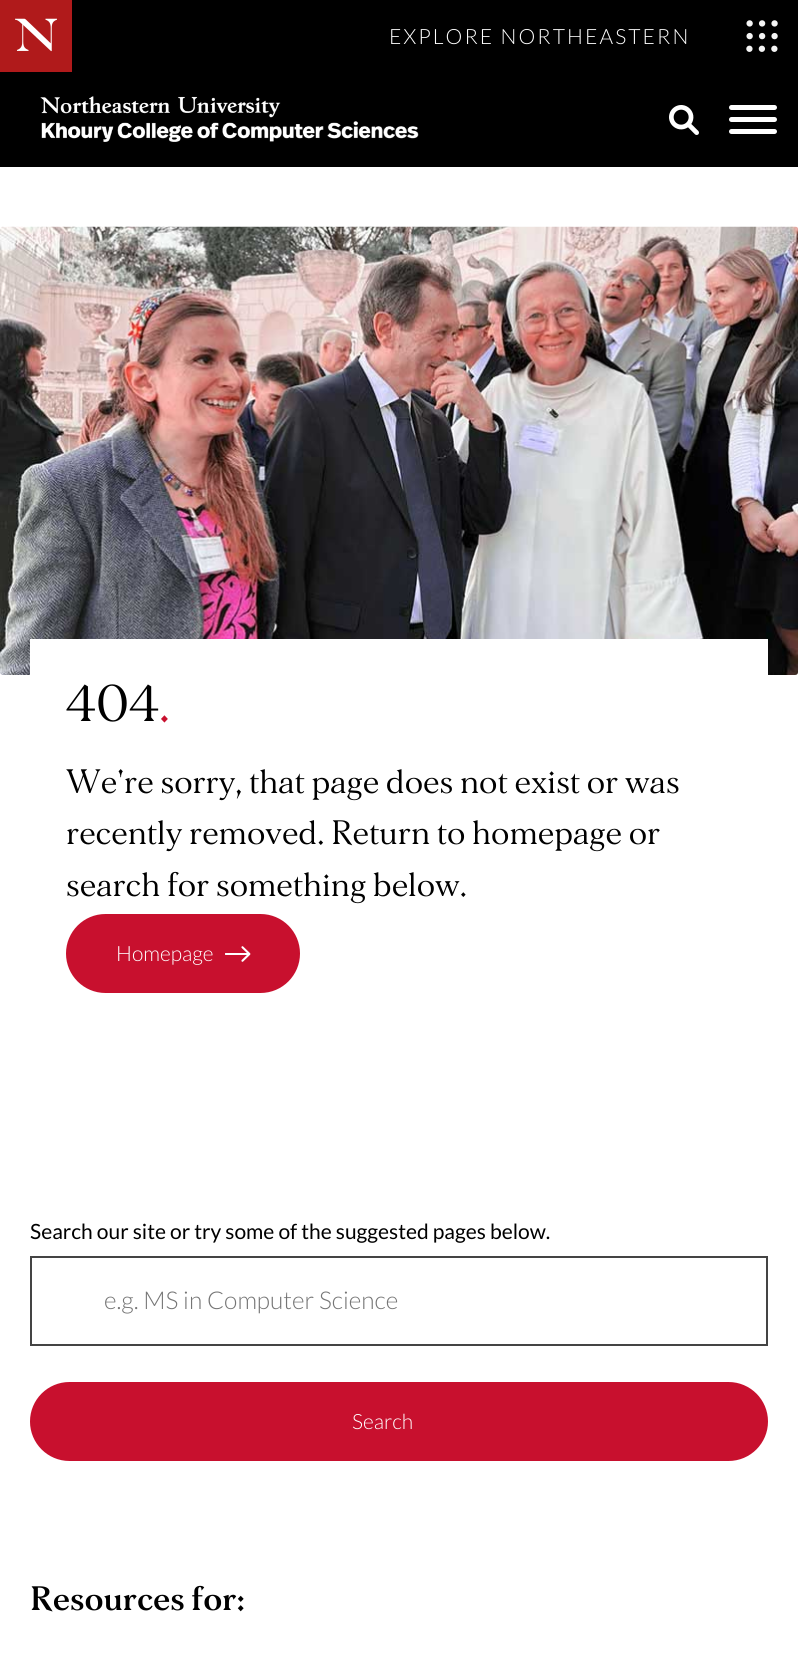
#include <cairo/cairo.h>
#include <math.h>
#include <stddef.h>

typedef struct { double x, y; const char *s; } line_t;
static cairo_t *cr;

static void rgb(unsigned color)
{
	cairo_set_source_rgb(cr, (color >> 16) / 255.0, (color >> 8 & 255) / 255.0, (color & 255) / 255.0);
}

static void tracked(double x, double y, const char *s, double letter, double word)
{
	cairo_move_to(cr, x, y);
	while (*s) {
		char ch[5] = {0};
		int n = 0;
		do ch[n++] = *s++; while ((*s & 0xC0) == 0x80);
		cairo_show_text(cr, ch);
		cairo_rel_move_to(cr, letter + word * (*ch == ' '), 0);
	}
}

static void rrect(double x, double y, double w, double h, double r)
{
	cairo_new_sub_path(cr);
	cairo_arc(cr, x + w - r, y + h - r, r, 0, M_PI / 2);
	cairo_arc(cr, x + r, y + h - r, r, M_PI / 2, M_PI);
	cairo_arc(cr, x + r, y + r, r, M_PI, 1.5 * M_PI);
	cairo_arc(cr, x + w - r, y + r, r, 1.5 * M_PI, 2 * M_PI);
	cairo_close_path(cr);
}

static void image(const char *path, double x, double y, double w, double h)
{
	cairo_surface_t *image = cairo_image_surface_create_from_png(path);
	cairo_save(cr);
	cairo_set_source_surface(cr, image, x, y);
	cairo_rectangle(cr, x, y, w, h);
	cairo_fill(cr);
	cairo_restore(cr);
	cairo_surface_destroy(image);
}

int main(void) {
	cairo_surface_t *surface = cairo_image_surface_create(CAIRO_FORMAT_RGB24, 798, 1664);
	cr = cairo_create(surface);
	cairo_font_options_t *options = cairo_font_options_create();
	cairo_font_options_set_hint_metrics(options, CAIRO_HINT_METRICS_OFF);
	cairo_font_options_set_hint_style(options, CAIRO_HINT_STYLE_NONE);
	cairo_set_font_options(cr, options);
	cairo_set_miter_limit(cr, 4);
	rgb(0xffffff);
	cairo_paint(cr);
	rgb(0x000000);
	cairo_rectangle(cr, 72, 0, 726, 72);
	cairo_fill(cr);
	rgb(0xb01a1b);
	cairo_rectangle(cr, 0, 0, 72, 72);
	cairo_fill(cr);
	image("img/1.png", 15, 18, 42, 34);
	image("img/2.png", 746, 20, 32, 32);
	rgb(0x000000);
	cairo_rectangle(cr, 0, 72, 798, 95);
	cairo_fill(cr);
	image("img/3.png", 40, 96, 379, 46);
	image("img/4.png", 669, 105, 30, 30);
	rgb(0xffffff);
	rrect(729, 105, 48, 5, 2.5);
	cairo_fill(cr);
	rrect(729, 117, 48, 5, 2.5);
	cairo_fill(cr);
	rrect(729, 129, 48, 5, 2.5);
	cairo_fill(cr);
	image("img/5.png", 0, 226, 798, 449);
	cairo_rectangle(cr, 30, 639, 738, 36);
	cairo_fill(cr);
	rgb(0xc8102e);
	rrect(67, 915, 232, 77, 38.5);
	cairo_fill_preserve(cr);
	cairo_stroke(cr);
	image("img/6.png", 225, 946, 26, 16);
	cairo_rectangle(cr, 31, 1257, 736, 88);
	rgb(0x444444);
	cairo_stroke(cr);
	rgb(0xc8102e);
	rrect(31, 1383, 736, 77, 38.5);
	cairo_fill_preserve(cr);
	cairo_stroke(cr);
	cairo_select_font_face(cr, "Lato Light", CAIRO_FONT_SLANT_NORMAL, CAIRO_FONT_WEIGHT_NORMAL);
	cairo_set_font_size(cr, 21);
	rgb(0xffffff);
	tracked(389, 44, "EXPLORE NORTHEASTERN", 2.1, 0);
	cairo_select_font_face(cr, "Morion", CAIRO_FONT_SLANT_NORMAL, CAIRO_FONT_WEIGHT_NORMAL);
	cairo_set_font_size(cr, 49);
	rgb(0x000000);
	cairo_move_to(cr, 66, 721);
	cairo_show_text(cr, "404");
	rgb(0xc8102e);
	cairo_move_to(cr, 159, 721);
	cairo_show_text(cr, ".");
	cairo_set_font_size(cr, 32.25);
	rgb(0x000000);
	{
		static const line_t items[] = {
			{66, 793, "We're sorry, that page does not exist or was"},
			{66, 844, "recently removed. Return to homepage or"},
			{66, 896, "search for something below."},
		};
		for (size_t i = 0; i < sizeof items / sizeof *items; i++) {
			cairo_move_to(cr, items[i].x, items[i].y);
			cairo_show_text(cr, items[i].s);
		}
	}
	cairo_select_font_face(cr, "Lato Light", CAIRO_FONT_SLANT_NORMAL, CAIRO_FONT_WEIGHT_NORMAL);
	cairo_set_font_size(cr, 21);
	rgb(0xffffff);
	cairo_move_to(cr, 116, 961);
	cairo_show_text(cr, "Homepage");
	cairo_select_font_face(cr, "Lato", CAIRO_FONT_SLANT_NORMAL, CAIRO_FONT_WEIGHT_NORMAL);
	rgb(0x000000);
	cairo_move_to(cr, 30, 1239);
	cairo_show_text(cr, "Search our site or try some of the suggested pages below.");
	cairo_select_font_face(cr, "Lato Light", CAIRO_FONT_SLANT_NORMAL, CAIRO_FONT_WEIGHT_NORMAL);
	cairo_set_font_size(cr, 24.5);
	rgb(0x757575);
	cairo_move_to(cr, 104, 1309);
	cairo_show_text(cr, "e.g. MS in Computer Science");
	cairo_set_font_size(cr, 21);
	rgb(0xffffff);
	cairo_move_to(cr, 352, 1429);
	cairo_show_text(cr, "Search");
	cairo_select_font_face(cr, "Morion", CAIRO_FONT_SLANT_NORMAL, CAIRO_FONT_WEIGHT_BOLD);
	cairo_set_font_size(cr, 32.25);
	rgb(0x000000);
	cairo_move_to(cr, 30, 1610);
	cairo_show_text(cr, "Resources for:");
	cairo_surface_write_to_png(surface, "page.png");
	cairo_font_options_destroy(options);
	cairo_destroy(cr);
	cairo_surface_destroy(surface);
	return 0;
}
